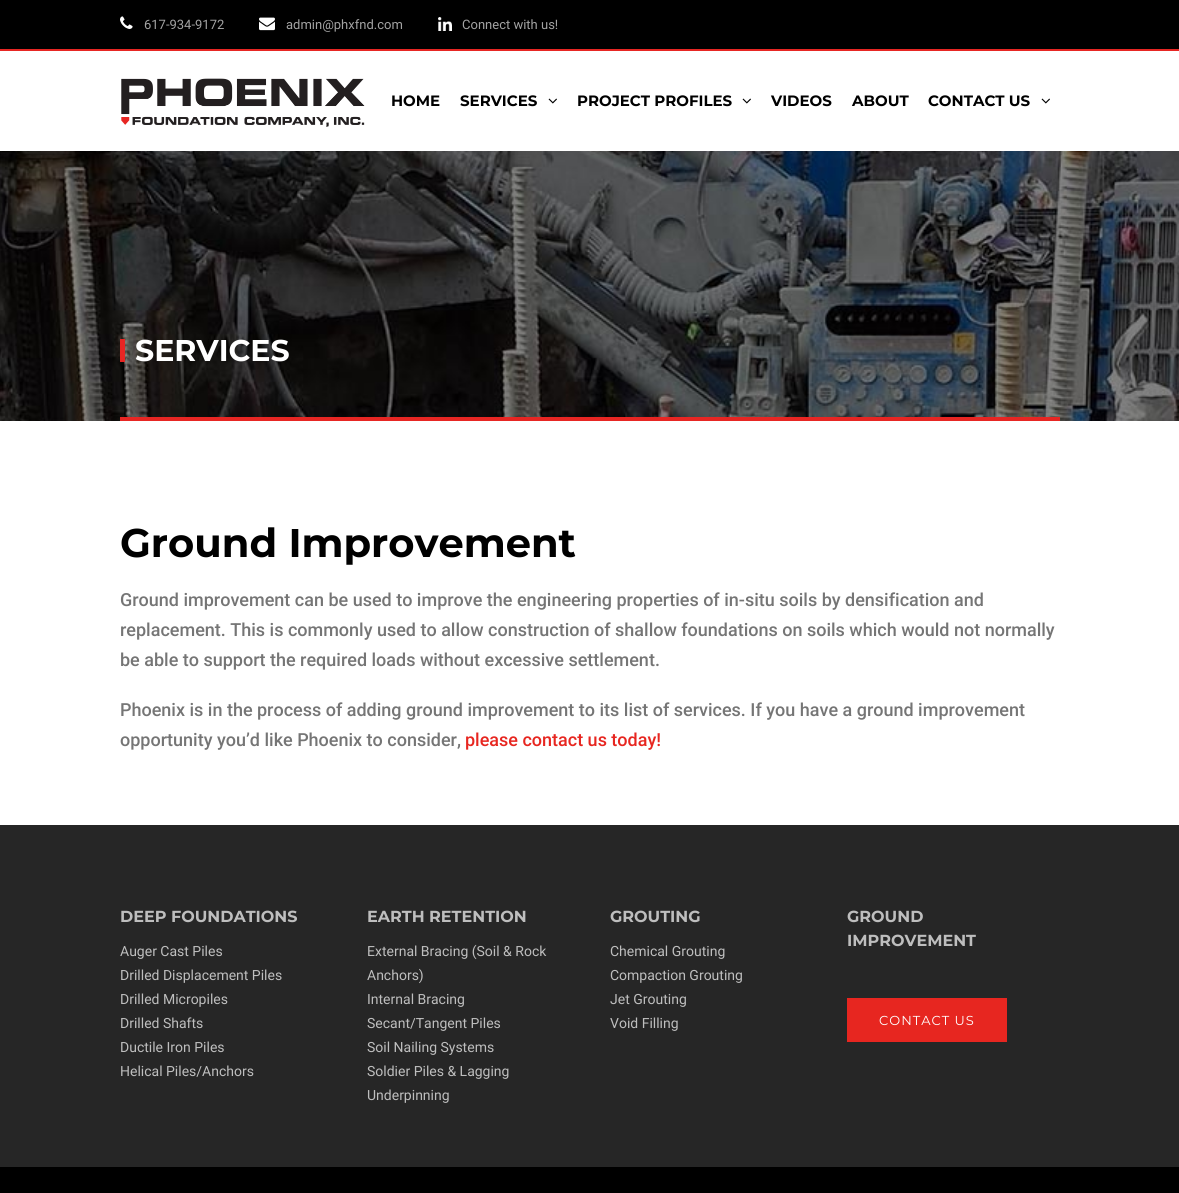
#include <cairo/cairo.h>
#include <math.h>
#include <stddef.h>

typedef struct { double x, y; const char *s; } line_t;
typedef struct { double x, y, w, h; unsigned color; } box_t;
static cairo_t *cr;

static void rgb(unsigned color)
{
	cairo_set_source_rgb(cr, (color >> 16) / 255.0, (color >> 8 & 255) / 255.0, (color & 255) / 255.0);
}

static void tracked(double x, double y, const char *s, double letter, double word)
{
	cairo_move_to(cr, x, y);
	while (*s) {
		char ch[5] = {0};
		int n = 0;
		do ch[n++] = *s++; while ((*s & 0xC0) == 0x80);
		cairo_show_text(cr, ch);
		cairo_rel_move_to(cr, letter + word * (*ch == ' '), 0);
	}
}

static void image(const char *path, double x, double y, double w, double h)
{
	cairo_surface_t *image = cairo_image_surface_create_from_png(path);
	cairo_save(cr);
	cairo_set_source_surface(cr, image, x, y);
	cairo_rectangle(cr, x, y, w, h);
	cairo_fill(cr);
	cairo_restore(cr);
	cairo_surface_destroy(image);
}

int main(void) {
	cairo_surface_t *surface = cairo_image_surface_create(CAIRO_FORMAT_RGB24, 1179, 1193);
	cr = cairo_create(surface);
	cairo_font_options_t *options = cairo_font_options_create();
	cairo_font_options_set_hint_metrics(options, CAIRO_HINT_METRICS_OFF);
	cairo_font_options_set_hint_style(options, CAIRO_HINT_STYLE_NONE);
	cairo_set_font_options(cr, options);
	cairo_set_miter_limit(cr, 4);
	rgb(0xffffff);
	cairo_paint(cr);
	rgb(0x000000);
	cairo_rectangle(cr, 0, 0, 1179, 49);
	cairo_fill(cr);
	rgb(0xe72623);
	cairo_rectangle(cr, 0, 49, 1179, 2);
	cairo_fill(cr);
	image("img/1.png", 120, 16, 13, 13);
	image("img/2.png", 259, 17, 16, 14);
	image("img/3.png", 438, 17, 14, 14);
	image("img/4.png", 121, 78, 244, 49);
	image("img/5.png", 548, 98, 9, 6);
	image("img/5.png", 742, 98, 9, 6);
	image("img/5.png", 1041, 98, 9, 6);
	image("img/6.png", 0, 151, 1179, 270);
	{
		static const box_t items[] = {
			{120, 417, 940, 4, 0xe72623},
			{120, 339, 5, 23, 0xe72623},
			{0, 825, 1179, 342, 0x262626},
			{847, 998, 160, 44, 0xe72620},
			{0, 1167, 1179, 26, 0x000000},
		};
		for (size_t i = 0; i < sizeof items / sizeof *items; i++) {
			rgb(items[i].color);
			cairo_rectangle(cr, items[i].x, items[i].y, items[i].w, items[i].h);
			cairo_fill(cr);
		}
	}
	cairo_select_font_face(cr, "Roboto", CAIRO_FONT_SLANT_NORMAL, CAIRO_FONT_WEIGHT_NORMAL);
	cairo_set_font_size(cr, 13);
	rgb(0xa3a3a3);
	{
		static const line_t items[] = {
			{144, 29, "617-934-9172"},
			{286, 29, "admin@phxfnd.com"},
			{462, 29, "Connect with us!"},
		};
		for (size_t i = 0; i < sizeof items / sizeof *items; i++) {
			cairo_move_to(cr, items[i].x, items[i].y);
			cairo_show_text(cr, items[i].s);
		}
	}
	cairo_select_font_face(cr, "Montserrat", CAIRO_FONT_SLANT_NORMAL, CAIRO_FONT_WEIGHT_BOLD);
	cairo_set_font_size(cr, 15);
	rgb(0x000000);
	{
		static const line_t items[] = {
			{391, 106, "HOME"},
			{460, 106, "SERVICES"},
			{577, 106, "PROJECT PROFILES"},
			{771, 106, "VIDEOS"},
			{852, 106, "ABOUT"},
			{928, 106, "CONTACT US"},
		};
		for (size_t i = 0; i < sizeof items / sizeof *items; i++) {
			cairo_move_to(cr, items[i].x, items[i].y);
			cairo_show_text(cr, items[i].s);
		}
	}
	cairo_set_font_size(cr, 30);
	rgb(0xffffff);
	cairo_move_to(cr, 135, 361);
	cairo_show_text(cr, "SERVICES");
	cairo_set_font_size(cr, 40);
	rgb(0x000000);
	cairo_move_to(cr, 120, 557);
	cairo_show_text(cr, "Ground Improvement");
	cairo_select_font_face(cr, "Roboto Medium", CAIRO_FONT_SLANT_NORMAL, CAIRO_FONT_WEIGHT_NORMAL);
	cairo_set_font_size(cr, 18);
	rgb(0x757575);
	{
		static const line_t items[] = {
			{120, 606, "Ground improvement can be used to improve the engineering properties of in-situ soils by densification and"},
			{120, 636, "replacement. This is commonly used to allow construction of shallow foundations on soils which would not normally"},
			{120, 666, "be able to support the required loads without excessive settlement."},
			{120, 716, "Phoenix is in the process of adding ground improvement to its list of services. If you have a ground improvement"},
			{120, 746, "opportunity you’d like Phoenix to consider,"},
		};
		for (size_t i = 0; i < sizeof items / sizeof *items; i++) {
			cairo_move_to(cr, items[i].x, items[i].y);
			cairo_show_text(cr, items[i].s);
		}
	}
	rgb(0xe72620);
	cairo_move_to(cr, 465, 746);
	cairo_show_text(cr, "please contact us today!");
	cairo_select_font_face(cr, "Montserrat", CAIRO_FONT_SLANT_NORMAL, CAIRO_FONT_WEIGHT_BOLD);
	cairo_set_font_size(cr, 16);
	rgb(0xbebebe);
	cairo_move_to(cr, 120, 922);
	cairo_show_text(cr, "DEEP FOUNDATIONS");
	cairo_select_font_face(cr, "Roboto", CAIRO_FONT_SLANT_NORMAL, CAIRO_FONT_WEIGHT_NORMAL);
	cairo_set_font_size(cr, 14);
	{
		static const line_t items[] = {
			{120, 956, "Auger Cast Piles"},
			{120, 980, "Drilled Displacement Piles"},
			{120, 1004, "Drilled Micropiles"},
			{120, 1028, "Drilled Shafts"},
			{120, 1052, "Ductile Iron Piles"},
			{120, 1076, "Helical Piles/Anchors"},
		};
		for (size_t i = 0; i < sizeof items / sizeof *items; i++) {
			cairo_move_to(cr, items[i].x, items[i].y);
			cairo_show_text(cr, items[i].s);
		}
	}
	cairo_select_font_face(cr, "Montserrat", CAIRO_FONT_SLANT_NORMAL, CAIRO_FONT_WEIGHT_BOLD);
	cairo_set_font_size(cr, 16);
	cairo_move_to(cr, 367, 922);
	cairo_show_text(cr, "EARTH RETENTION");
	cairo_select_font_face(cr, "Roboto", CAIRO_FONT_SLANT_NORMAL, CAIRO_FONT_WEIGHT_NORMAL);
	cairo_set_font_size(cr, 14);
	{
		static const line_t items[] = {
			{367, 956, "External Bracing (Soil & Rock"},
			{367, 980, "Anchors)"},
			{367, 1004, "Internal Bracing"},
			{367, 1028, "Secant/Tangent Piles"},
			{367, 1052, "Soil Nailing Systems"},
			{367, 1076, "Soldier Piles & Lagging"},
			{367, 1100, "Underpinning"},
		};
		for (size_t i = 0; i < sizeof items / sizeof *items; i++) {
			cairo_move_to(cr, items[i].x, items[i].y);
			cairo_show_text(cr, items[i].s);
		}
	}
	cairo_select_font_face(cr, "Montserrat", CAIRO_FONT_SLANT_NORMAL, CAIRO_FONT_WEIGHT_BOLD);
	cairo_set_font_size(cr, 16);
	cairo_move_to(cr, 610, 922);
	cairo_show_text(cr, "GROUTING");
	cairo_select_font_face(cr, "Roboto", CAIRO_FONT_SLANT_NORMAL, CAIRO_FONT_WEIGHT_NORMAL);
	cairo_set_font_size(cr, 14);
	{
		static const line_t items[] = {
			{610, 956, "Chemical Grouting"},
			{610, 980, "Compaction Grouting"},
			{610, 1004, "Jet Grouting"},
			{610, 1028, "Void Filling"},
		};
		for (size_t i = 0; i < sizeof items / sizeof *items; i++) {
			cairo_move_to(cr, items[i].x, items[i].y);
			cairo_show_text(cr, items[i].s);
		}
	}
	cairo_select_font_face(cr, "Montserrat", CAIRO_FONT_SLANT_NORMAL, CAIRO_FONT_WEIGHT_BOLD);
	cairo_set_font_size(cr, 16);
	cairo_move_to(cr, 847, 922);
	cairo_show_text(cr, "GROUND");
	cairo_move_to(cr, 847, 946);
	cairo_show_text(cr, "IMPROVEMENT");
	cairo_select_font_face(cr, "Montserrat", CAIRO_FONT_SLANT_NORMAL, CAIRO_FONT_WEIGHT_NORMAL);
	cairo_set_font_size(cr, 13);
	rgb(0xffffff);
	tracked(879, 1025, "CONTACT US", 1, 0);
	cairo_surface_write_to_png(surface, "page.png");
	cairo_font_options_destroy(options);
	cairo_destroy(cr);
	cairo_surface_destroy(surface);
	return 0;
}
